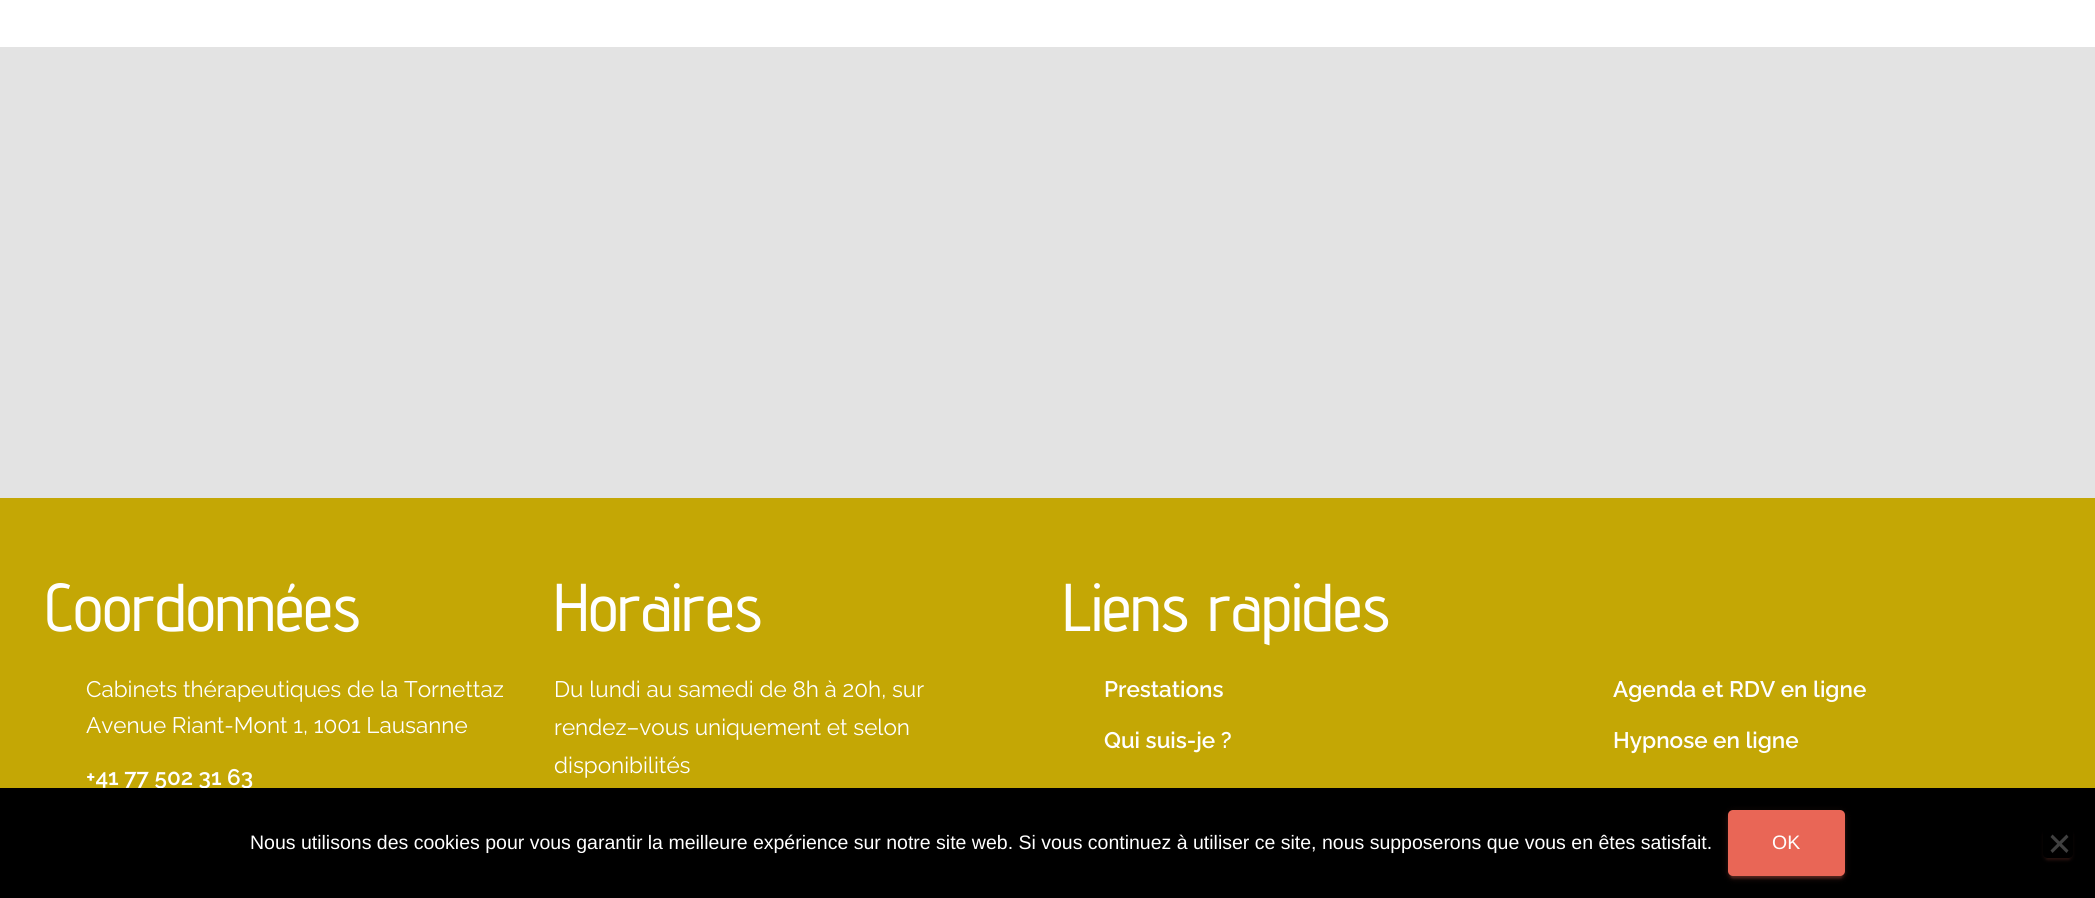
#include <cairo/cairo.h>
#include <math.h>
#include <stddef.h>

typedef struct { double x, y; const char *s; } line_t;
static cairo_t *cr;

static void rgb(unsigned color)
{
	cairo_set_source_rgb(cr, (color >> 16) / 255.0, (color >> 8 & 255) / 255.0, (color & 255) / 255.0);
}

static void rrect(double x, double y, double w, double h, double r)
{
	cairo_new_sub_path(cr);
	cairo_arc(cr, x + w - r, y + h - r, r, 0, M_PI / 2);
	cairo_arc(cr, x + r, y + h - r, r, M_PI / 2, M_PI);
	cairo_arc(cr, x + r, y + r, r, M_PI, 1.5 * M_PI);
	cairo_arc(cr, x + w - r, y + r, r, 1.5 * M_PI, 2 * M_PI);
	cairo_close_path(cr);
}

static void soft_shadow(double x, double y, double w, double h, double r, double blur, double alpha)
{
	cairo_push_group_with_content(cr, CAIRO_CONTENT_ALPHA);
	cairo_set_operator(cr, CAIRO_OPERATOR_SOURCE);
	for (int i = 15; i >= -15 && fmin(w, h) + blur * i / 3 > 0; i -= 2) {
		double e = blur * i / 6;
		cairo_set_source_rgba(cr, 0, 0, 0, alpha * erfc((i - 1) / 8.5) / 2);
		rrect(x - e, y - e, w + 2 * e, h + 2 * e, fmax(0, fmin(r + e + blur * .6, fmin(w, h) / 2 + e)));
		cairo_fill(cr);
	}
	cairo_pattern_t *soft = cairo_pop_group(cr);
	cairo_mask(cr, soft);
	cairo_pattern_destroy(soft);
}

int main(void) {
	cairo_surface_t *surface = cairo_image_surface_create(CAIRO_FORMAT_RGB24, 2095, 898);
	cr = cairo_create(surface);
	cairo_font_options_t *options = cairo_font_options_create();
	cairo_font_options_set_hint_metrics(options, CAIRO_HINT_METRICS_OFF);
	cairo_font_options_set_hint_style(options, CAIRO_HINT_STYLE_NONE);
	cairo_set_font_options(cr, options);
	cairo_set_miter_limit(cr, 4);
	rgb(0xffffff);
	cairo_paint(cr);
	rgb(0xe3e3e3);
	cairo_rectangle(cr, 0, 47, 2095, 451);
	cairo_fill(cr);
	rgb(0xc4a705);
	cairo_rectangle(cr, 0, 498, 2095, 290);
	cairo_fill(cr);
	cairo_select_font_face(cr, "Advent Pro Medium", CAIRO_FONT_SLANT_NORMAL, CAIRO_FONT_WEIGHT_NORMAL);
	cairo_set_font_size(cr, 67.5);
	rgb(0xffffff);
	cairo_move_to(cr, 45, 631);
	cairo_show_text(cr, "Coordonnées");
	cairo_select_font_face(cr, "Raleway", CAIRO_FONT_SLANT_NORMAL, CAIRO_FONT_WEIGHT_NORMAL);
	cairo_set_font_size(cr, 22.5);
	cairo_move_to(cr, 86, 697);
	cairo_show_text(cr, "Cabinets thérapeutiques de la Tornettaz");
	cairo_move_to(cr, 86, 733);
	cairo_show_text(cr, "Avenue Riant-Mont 1, 1001 Lausanne");
	cairo_select_font_face(cr, "Raleway SemiBold", CAIRO_FONT_SLANT_NORMAL, CAIRO_FONT_WEIGHT_NORMAL);
	cairo_move_to(cr, 86, 785);
	cairo_show_text(cr, "+41 77 502 31 63");
	cairo_select_font_face(cr, "Advent Pro Medium", CAIRO_FONT_SLANT_NORMAL, CAIRO_FONT_WEIGHT_NORMAL);
	cairo_set_font_size(cr, 67.5);
	cairo_move_to(cr, 554, 631);
	cairo_show_text(cr, "Horaires");
	cairo_select_font_face(cr, "Raleway", CAIRO_FONT_SLANT_NORMAL, CAIRO_FONT_WEIGHT_NORMAL);
	cairo_set_font_size(cr, 22.5);
	{
		static const line_t items[] = {
			{554, 697, "Du lundi au samedi de 8h à 20h, sur"},
			{554, 735, "rendez–vous uniquement et selon"},
			{554, 773, "disponibilités"},
		};
		for (size_t i = 0; i < sizeof items / sizeof *items; i++) {
			cairo_move_to(cr, items[i].x, items[i].y);
			cairo_show_text(cr, items[i].s);
		}
	}
	cairo_select_font_face(cr, "Advent Pro Medium", CAIRO_FONT_SLANT_NORMAL, CAIRO_FONT_WEIGHT_NORMAL);
	cairo_set_font_size(cr, 67.5);
	cairo_move_to(cr, 1063, 631);
	cairo_show_text(cr, "Liens rapides");
	cairo_select_font_face(cr, "Raleway SemiBold", CAIRO_FONT_SLANT_NORMAL, CAIRO_FONT_WEIGHT_NORMAL);
	cairo_set_font_size(cr, 22.5);
	{
		static const line_t items[] = {
			{1104, 697, "Prestations"},
			{1104, 748, "Qui suis-je ?"},
			{1613, 697, "Agenda et RDV en ligne"},
			{1613, 748, "Hypnose en ligne"},
		};
		for (size_t i = 0; i < sizeof items / sizeof *items; i++) {
			cairo_move_to(cr, items[i].x, items[i].y);
			cairo_show_text(cr, items[i].s);
		}
	}
	rgb(0x000000);
	cairo_rectangle(cr, 0, 788, 2095, 110);
	cairo_fill(cr);
	cairo_select_font_face(cr, "Liberation Sans", CAIRO_FONT_SLANT_NORMAL, CAIRO_FONT_WEIGHT_NORMAL);
	cairo_set_font_size(cr, 19.5);
	rgb(0xffffff);
	cairo_move_to(cr, 250, 849);
	cairo_show_text(cr, "Nous utilisons des cookies pour vous garantir la meilleure expérience sur notre site web. Si vous continuez à utiliser ce site, nous supposerons que vous en êtes satisfait.");
	rgb(0xe96656);
	soft_shadow(1728, 812, 117, 66, 5, 4, 0.12);
	soft_shadow(1731, 818, 111, 60, 1.5, 1, 0.2);
	soft_shadow(1728, 813, 117, 66, 5, 1.5, 0.14);
	rgb(0xe96656);
	rrect(1728, 810, 117, 66, 5);
	cairo_fill(cr);
	rgb(0xffffff);
	cairo_move_to(cr, 1772, 849);
	cairo_show_text(cr, "OK");
	cairo_save(cr);
	cairo_set_fill_rule(cr, CAIRO_FILL_RULE_EVEN_ODD);
	cairo_new_path(cr);
	cairo_move_to(cr, 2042, 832);
	cairo_line_to(cr, 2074, 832);
	cairo_line_to(cr, 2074, 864);
	cairo_line_to(cr, 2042, 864);
	cairo_close_path(cr);
	cairo_move_to(cr, 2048, 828);
	cairo_line_to(cr, 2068, 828);
	cairo_curve_to(cr, 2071, 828, 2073, 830, 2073, 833);
	cairo_line_to(cr, 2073, 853);
	cairo_curve_to(cr, 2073, 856, 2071, 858, 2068, 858);
	cairo_line_to(cr, 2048, 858);
	cairo_curve_to(cr, 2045, 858, 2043, 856, 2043, 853);
	cairo_line_to(cr, 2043, 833);
	cairo_curve_to(cr, 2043, 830, 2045, 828, 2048, 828);
	cairo_close_path(cr);
	cairo_clip(cr);
	rgb(0x75332b);
	soft_shadow(2046, 836, 24, 24, 1.5, 1, 0.2);
	cairo_restore(cr);
	cairo_save(cr);
	cairo_set_fill_rule(cr, CAIRO_FILL_RULE_EVEN_ODD);
	cairo_new_path(cr);
	cairo_move_to(cr, 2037, 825);
	cairo_line_to(cr, 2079, 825);
	cairo_line_to(cr, 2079, 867);
	cairo_line_to(cr, 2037, 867);
	cairo_close_path(cr);
	cairo_move_to(cr, 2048, 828);
	cairo_line_to(cr, 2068, 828);
	cairo_curve_to(cr, 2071, 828, 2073, 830, 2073, 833);
	cairo_line_to(cr, 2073, 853);
	cairo_curve_to(cr, 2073, 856, 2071, 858, 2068, 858);
	cairo_line_to(cr, 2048, 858);
	cairo_curve_to(cr, 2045, 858, 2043, 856, 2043, 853);
	cairo_line_to(cr, 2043, 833);
	cairo_curve_to(cr, 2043, 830, 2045, 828, 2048, 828);
	cairo_close_path(cr);
	cairo_clip(cr);
	rgb(0x75332b);
	soft_shadow(2043, 831, 30, 30, 5, 1.5, 0.14);
	cairo_restore(cr);
	rgb(0x404040);
	cairo_new_path(cr);
	cairo_move_to(cr, 2066.5, 834.5);
	cairo_line_to(cr, 2068.5, 837);
	cairo_line_to(cr, 2052.5, 853);
	cairo_line_to(cr, 2050.5, 850.5);
	cairo_close_path(cr);
	cairo_fill(cr);
	cairo_new_path(cr);
	cairo_move_to(cr, 2050.5, 837);
	cairo_line_to(cr, 2052.5, 834.5);
	cairo_line_to(cr, 2068.5, 850.5);
	cairo_line_to(cr, 2066.5, 853);
	cairo_close_path(cr);
	cairo_fill(cr);
	cairo_surface_write_to_png(surface, "page.png");
	cairo_font_options_destroy(options);
	cairo_destroy(cr);
	cairo_surface_destroy(surface);
	return 0;
}
